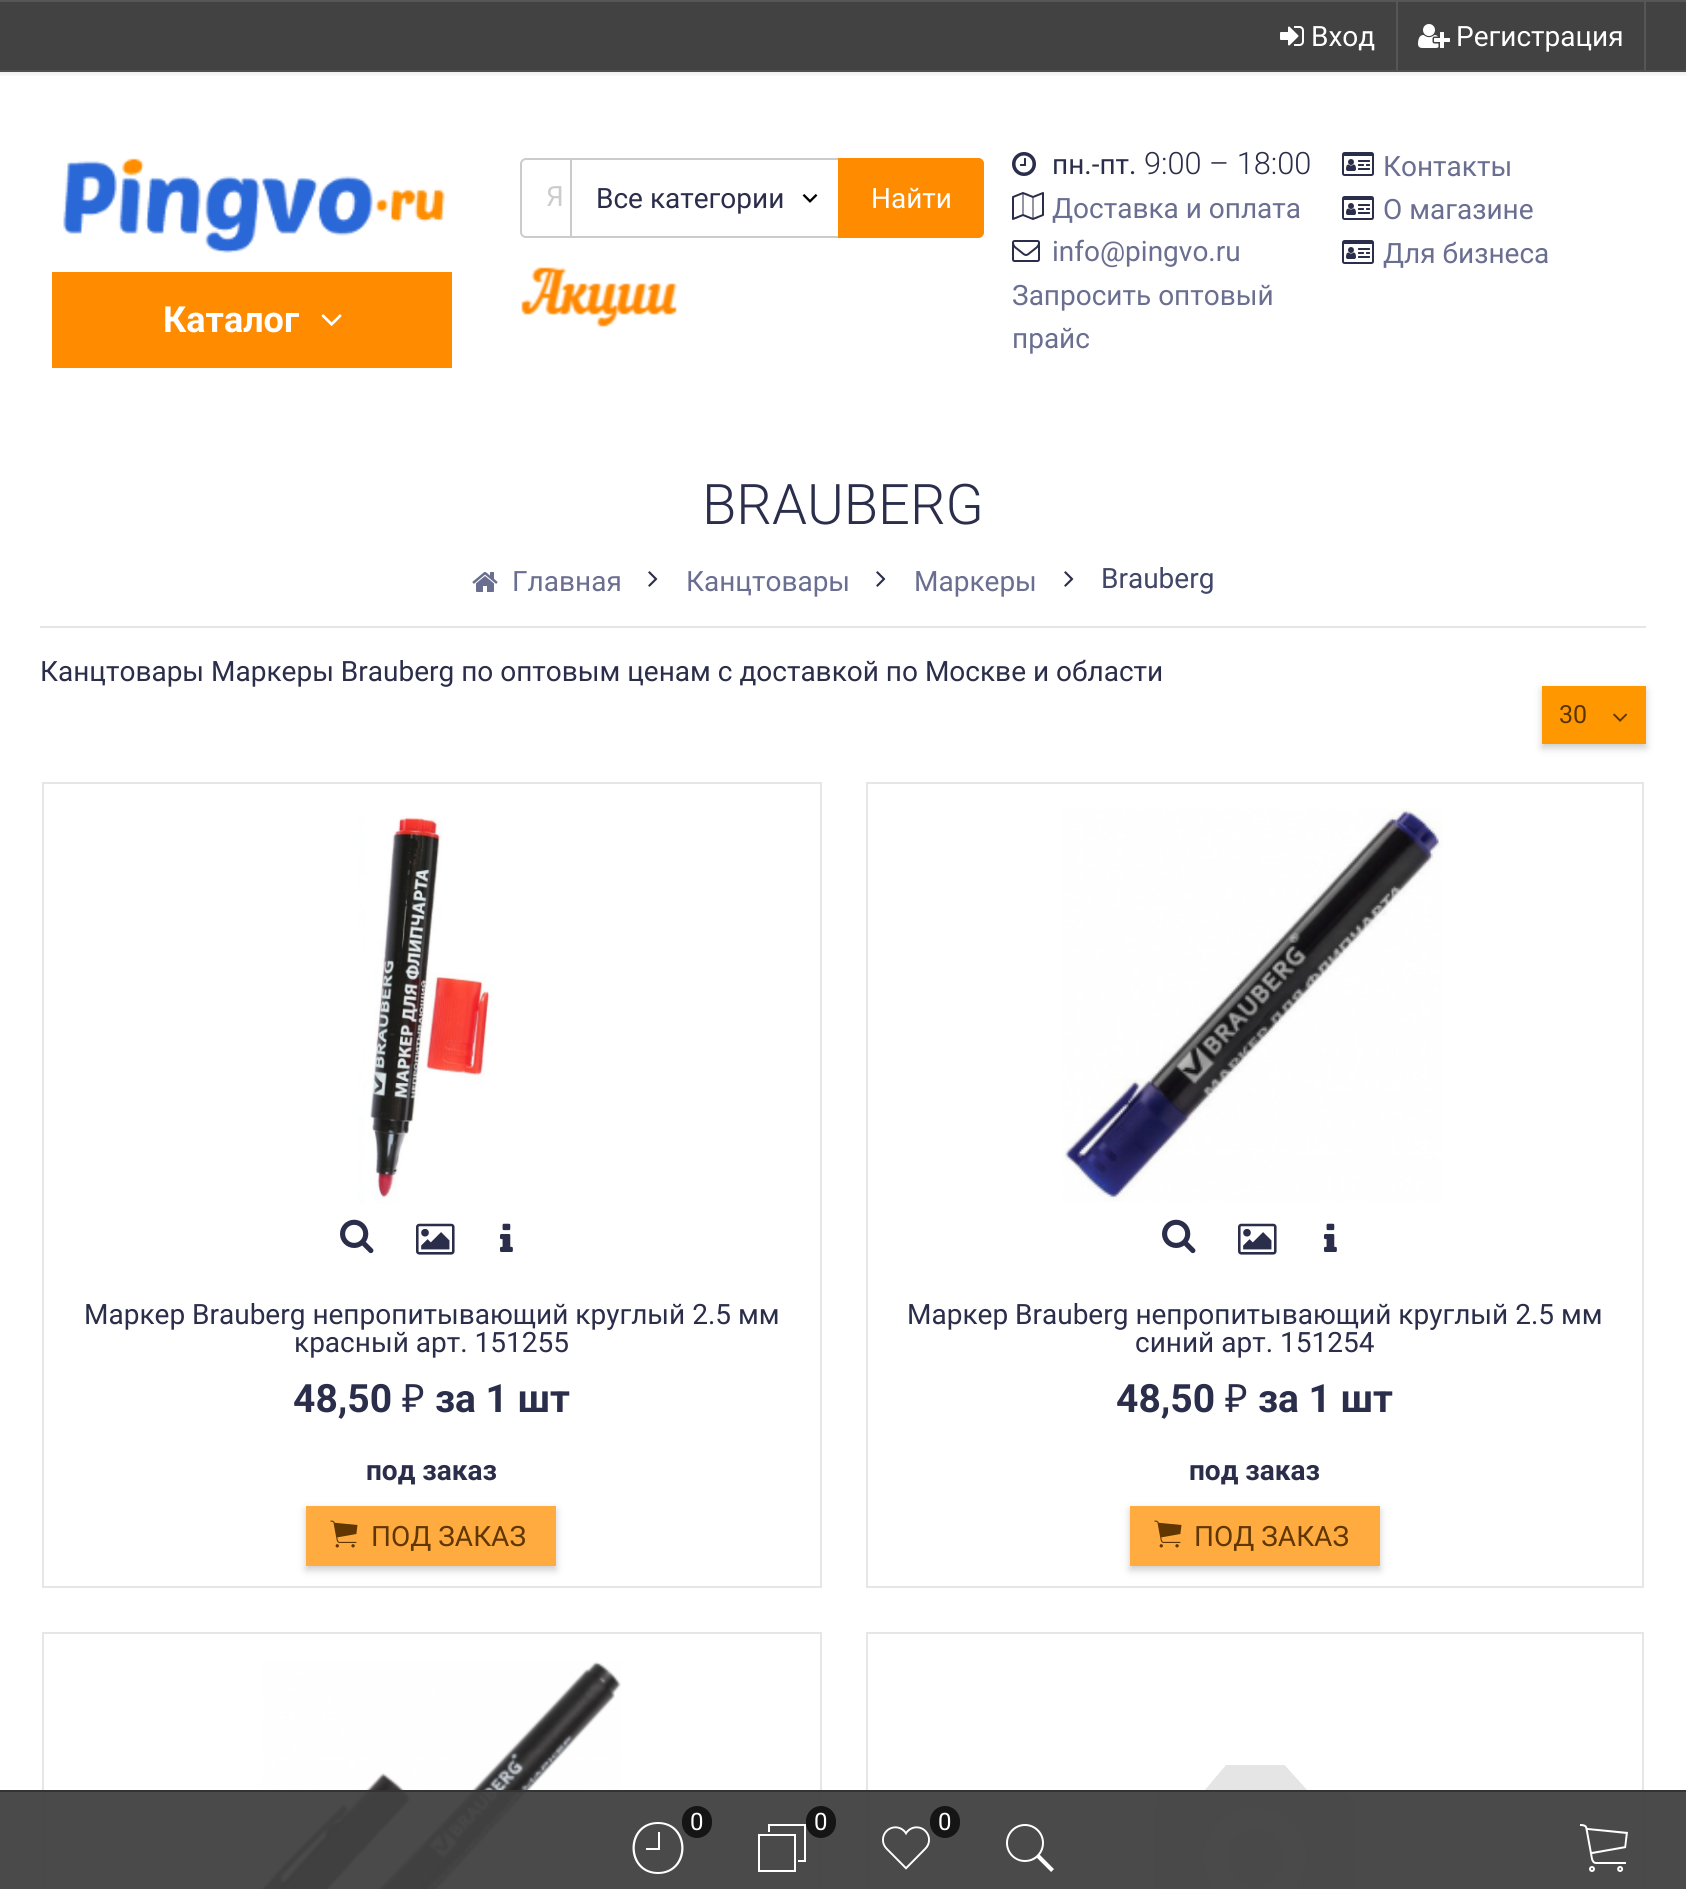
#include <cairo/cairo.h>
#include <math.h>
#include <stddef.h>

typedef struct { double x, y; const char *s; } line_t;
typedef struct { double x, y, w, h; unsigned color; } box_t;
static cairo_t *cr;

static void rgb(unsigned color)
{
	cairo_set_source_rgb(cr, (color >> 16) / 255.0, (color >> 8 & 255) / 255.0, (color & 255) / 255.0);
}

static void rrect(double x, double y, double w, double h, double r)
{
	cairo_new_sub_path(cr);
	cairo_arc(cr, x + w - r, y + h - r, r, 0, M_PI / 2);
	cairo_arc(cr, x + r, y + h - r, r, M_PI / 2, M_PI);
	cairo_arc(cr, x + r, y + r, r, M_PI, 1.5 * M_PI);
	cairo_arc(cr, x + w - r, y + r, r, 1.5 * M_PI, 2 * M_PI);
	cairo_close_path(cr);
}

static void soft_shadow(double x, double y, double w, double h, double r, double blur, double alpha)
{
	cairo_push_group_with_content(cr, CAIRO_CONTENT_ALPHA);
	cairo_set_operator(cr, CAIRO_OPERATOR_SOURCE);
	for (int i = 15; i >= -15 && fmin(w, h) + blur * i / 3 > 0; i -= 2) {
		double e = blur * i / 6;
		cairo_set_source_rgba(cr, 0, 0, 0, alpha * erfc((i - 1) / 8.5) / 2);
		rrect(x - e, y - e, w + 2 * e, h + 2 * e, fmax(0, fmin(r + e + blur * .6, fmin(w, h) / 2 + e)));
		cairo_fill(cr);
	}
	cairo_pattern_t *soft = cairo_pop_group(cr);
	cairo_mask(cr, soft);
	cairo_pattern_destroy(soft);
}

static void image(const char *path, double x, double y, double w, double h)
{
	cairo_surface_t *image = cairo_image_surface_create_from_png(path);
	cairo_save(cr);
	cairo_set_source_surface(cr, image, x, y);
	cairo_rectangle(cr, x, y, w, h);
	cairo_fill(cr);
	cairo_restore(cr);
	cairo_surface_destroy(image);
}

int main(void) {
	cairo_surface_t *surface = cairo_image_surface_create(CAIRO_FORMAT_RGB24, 1686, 1889);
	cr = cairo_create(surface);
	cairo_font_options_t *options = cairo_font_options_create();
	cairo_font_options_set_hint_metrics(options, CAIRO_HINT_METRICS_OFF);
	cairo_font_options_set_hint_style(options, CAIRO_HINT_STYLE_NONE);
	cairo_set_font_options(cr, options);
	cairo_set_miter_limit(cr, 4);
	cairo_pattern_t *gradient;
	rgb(0xffffff);
	cairo_paint(cr);
	{
		static const box_t items[] = {
			{0, 2, 1686, 68, 0x424242},
			{0, 0, 1686, 2, 0x565656},
			{0, 70, 1686, 2, 0x565656},
			{1396, 2, 2, 68, 0x565656},
		};
		for (size_t i = 0; i < sizeof items / sizeof *items; i++) {
			rgb(items[i].color);
			cairo_rectangle(cr, items[i].x, items[i].y, items[i].w, items[i].h);
			cairo_fill(cr);
		}
	}
	image("img/1.png", 1280, 26, 24, 20);
	cairo_rectangle(cr, 1644, 2, 2, 68);
	cairo_fill(cr);
	image("img/2.png", 1418, 24, 32, 24);
	gradient = cairo_pattern_create_linear(843, 70, 843, 78);
	cairo_pattern_add_color_stop_rgba(gradient, 0, 0, 0, 0, 0.08);
	cairo_pattern_add_color_stop_rgba(gradient, 1, 0, 0, 0, 0);
	cairo_set_source(cr, gradient);
	cairo_pattern_destroy(gradient);
	cairo_rectangle(cr, 0, 70, 1686, 6);
	cairo_fill(cr);
	image("img/3.png", 63, 158, 382, 95);
	rgb(0xff8b00);
	cairo_rectangle(cr, 52, 272, 400, 96);
	cairo_fill(cr);
	image("img/4.png", 321, 314, 21, 12);
	rrect(521, 159, 462, 78, 5);
	rgb(0xcbcbcb);
	cairo_stroke(cr);
	cairo_rectangle(cr, 570, 160, 2, 76);
	cairo_fill(cr);
	image("img/5.png", 802, 194, 16, 9);
	rgb(0xff8b00);
	cairo_new_path(cr);
	cairo_move_to(cr, 838, 158);
	cairo_line_to(cr, 978, 158);
	cairo_curve_to(cr, 981.5, 158, 984, 160.5, 984, 164);
	cairo_line_to(cr, 984, 232);
	cairo_curve_to(cr, 984, 235.5, 981.5, 238, 978, 238);
	cairo_line_to(cr, 838, 238);
	cairo_close_path(cr);
	cairo_fill(cr);
	image("img/6.png", 521, 267, 156, 60);
	image("img/7.png", 1012, 152, 24, 24);
	image("img/8.png", 1012, 192, 32, 28);
	image("img/9.png", 1012, 240, 28, 22);
	image("img/10.png", 1342, 152, 32, 24);
	image("img/10.png", 1342, 196, 32, 24);
	image("img/10.png", 1342, 240, 32, 24);
	rgb(0xe6e6e6);
	cairo_rectangle(cr, 40, 626, 1606, 2);
	cairo_fill(cr);
	image("img/11.png", 472, 572, 26, 20);
	image("img/12.png", 648, 571, 10, 16);
	image("img/12.png", 876, 571, 10, 16);
	image("img/12.png", 1064, 571, 10, 16);
	rgb(0x000000);
	soft_shadow(1542, 690, 104, 58, 0, 4, 0.2);
	rgb(0xff9800);
	cairo_rectangle(cr, 1542, 686, 104, 58);
	cairo_fill(cr);
	image("img/13.png", 1613, 713, 15, 9);
	cairo_rectangle(cr, 43, 783, 778, 804);
	rgb(0xe6e6e6);
	cairo_stroke(cr);
	image("img/14.png", 358, 816, 136, 388);
	image("img/15.png", 340, 1219, 34, 35);
	image("img/16.png", 416, 1223, 39, 32);
	image("img/17.png", 500, 1223, 13, 29);
	rgb(0x000000);
	soft_shadow(306, 1510, 250, 60, 0, 4, 0.2);
	rgb(0xffab40);
	cairo_rectangle(cr, 306, 1506, 250, 60);
	cairo_fill(cr);
	image("img/18.png", 330, 1520, 28, 28);
	cairo_rectangle(cr, 867, 783, 776, 804);
	rgb(0xe6e6e6);
	cairo_stroke(cr);
	image("img/19.png", 1062, 808, 381, 394);
	image("img/15.png", 1162, 1219, 34, 35);
	image("img/16.png", 1238, 1223, 39, 32);
	image("img/17.png", 1324, 1223, 13, 29);
	rgb(0x000000);
	soft_shadow(1130, 1510, 250, 60, 0, 4, 0.2);
	rgb(0xffab40);
	cairo_rectangle(cr, 1130, 1506, 250, 60);
	cairo_fill(cr);
	image("img/18.png", 1154, 1520, 28, 28);
	cairo_rectangle(cr, 43, 1633, 778, 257);
	rgb(0xe6e6e6);
	cairo_stroke(cr);
	image("img/20.png", 261, 1661, 360, 228);
	cairo_rectangle(cr, 867, 1633, 776, 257);
	cairo_stroke(cr);
	image("img/21.png", 1154, 1765, 202, 124);
	cairo_set_source_rgba(cr, 0.259, 0.259, 0.259, 0.95);
	cairo_rectangle(cr, 0, 1790, 1686, 99);
	cairo_fill(cr);
	cairo_set_source_rgba(cr, 0.2, 0.2, 0.2, 0.95);
	cairo_rectangle(cr, 0, 1790, 1686, 2);
	cairo_fill(cr);
	rgb(0xffffff);
	cairo_new_path(cr);
	cairo_move_to(cr, 658, 1822);
	cairo_curve_to(cr, 624, 1822, 624, 1874, 658, 1874);
	cairo_curve_to(cr, 692, 1874, 692, 1822, 658, 1822);
	cairo_close_path(cr);
	cairo_move_to(cr, 658, 1872);
	cairo_curve_to(cr, 627, 1872, 627, 1824, 658, 1824);
	cairo_curve_to(cr, 689, 1824, 689, 1872, 658, 1872);
	cairo_close_path(cr);
	cairo_move_to(cr, 658, 1848);
	cairo_line_to(cr, 646, 1848);
	cairo_line_to(cr, 646, 1850);
	cairo_line_to(cr, 660, 1850);
	cairo_line_to(cr, 660, 1832);
	cairo_line_to(cr, 658, 1832);
	cairo_close_path(cr);
	cairo_fill(cr);
	rgb(0x151515);
	rrect(682, 1806, 30, 32, 15);
	cairo_fill(cr);
	rrect(806, 1806, 30, 32, 15);
	cairo_fill(cr);
	rgb(0xffffff);
	cairo_new_path(cr);
	cairo_move_to(cr, 758, 1834);
	cairo_line_to(cr, 758, 1872);
	cairo_line_to(cr, 796, 1872);
	cairo_line_to(cr, 796, 1834);
	cairo_close_path(cr);
	cairo_move_to(cr, 794, 1870);
	cairo_line_to(cr, 760, 1870);
	cairo_line_to(cr, 760, 1836);
	cairo_line_to(cr, 794, 1836);
	cairo_close_path(cr);
	cairo_move_to(cr, 806, 1824);
	cairo_line_to(cr, 768, 1824);
	cairo_line_to(cr, 768, 1832);
	cairo_line_to(cr, 770, 1832);
	cairo_line_to(cr, 770, 1826);
	cairo_line_to(cr, 804, 1826);
	cairo_line_to(cr, 804, 1860);
	cairo_line_to(cr, 798, 1860);
	cairo_line_to(cr, 798, 1862);
	cairo_line_to(cr, 806, 1862);
	cairo_close_path(cr);
	cairo_fill(cr);
	rgb(0x151515);
	rrect(930, 1806, 30, 32, 15);
	cairo_fill(cr);
	image("img/22.png", 882, 1826, 48, 44);
	image("img/23.png", 1006, 1824, 48, 48);
	image("img/24.png", 1580, 1824, 48, 48);
	cairo_select_font_face(cr, "Roboto", CAIRO_FONT_SLANT_NORMAL, CAIRO_FONT_WEIGHT_NORMAL);
	cairo_set_font_size(cr, 28);
	rgb(0xffffff);
	cairo_move_to(cr, 1311, 46);
	cairo_show_text(cr, "Вход");
	cairo_move_to(cr, 1456, 46);
	cairo_show_text(cr, "Регистрация");
	cairo_select_font_face(cr, "Roboto", CAIRO_FONT_SLANT_NORMAL, CAIRO_FONT_WEIGHT_BOLD);
	cairo_set_font_size(cr, 36);
	cairo_move_to(cr, 163, 332);
	cairo_show_text(cr, "Каталог");
	cairo_select_font_face(cr, "Roboto", CAIRO_FONT_SLANT_NORMAL, CAIRO_FONT_WEIGHT_NORMAL);
	cairo_set_font_size(cr, 28);
	rgb(0xcccccc);
	cairo_move_to(cr, 546, 206);
	cairo_show_text(cr, "Я");
	rgb(0x2b2e4a);
	cairo_move_to(cr, 596, 208);
	cairo_show_text(cr, "Все категории");
	rgb(0xffffff);
	cairo_move_to(cr, 871, 208);
	cairo_show_text(cr, "Найти");
	rgb(0x2b2e4a);
	cairo_move_to(cr, 1052, 174);
	cairo_show_text(cr, "пн.-пт.");
	cairo_select_font_face(cr, "Roboto Light", CAIRO_FONT_SLANT_NORMAL, CAIRO_FONT_WEIGHT_NORMAL);
	cairo_set_font_size(cr, 30.75);
	cairo_move_to(cr, 1144, 174);
	cairo_show_text(cr, "9:00 – 18:00");
	cairo_select_font_face(cr, "Roboto", CAIRO_FONT_SLANT_NORMAL, CAIRO_FONT_WEIGHT_NORMAL);
	cairo_set_font_size(cr, 28);
	rgb(0x6a6f91);
	{
		static const line_t items[] = {
			{1052, 218, "Доставка и оплата"},
			{1052, 261, "info@pingvo.ru"},
			{1012, 305, "Запросить оптовый"},
			{1012, 348, "прайс"},
			{1383, 176, "Контакты"},
			{1383, 219, "О магазине"},
			{1383, 263, "Для бизнеса"},
		};
		for (size_t i = 0; i < sizeof items / sizeof *items; i++) {
			cairo_move_to(cr, items[i].x, items[i].y);
			cairo_show_text(cr, items[i].s);
		}
	}
	cairo_select_font_face(cr, "Roboto Light", CAIRO_FONT_SLANT_NORMAL, CAIRO_FONT_WEIGHT_NORMAL);
	cairo_set_font_size(cr, 56);
	rgb(0x2b2e4a);
	cairo_move_to(cr, 702, 524);
	cairo_show_text(cr, "BRAUBERG");
	cairo_select_font_face(cr, "Roboto", CAIRO_FONT_SLANT_NORMAL, CAIRO_FONT_WEIGHT_NORMAL);
	cairo_set_font_size(cr, 28);
	rgb(0x6a6f91);
	{
		static const line_t items[] = {
			{512, 591, "Главная"},
			{686, 591, "Канцтовары"},
			{914, 591, "Маркеры"},
		};
		for (size_t i = 0; i < sizeof items / sizeof *items; i++) {
			cairo_move_to(cr, items[i].x, items[i].y);
			cairo_show_text(cr, items[i].s);
		}
	}
	rgb(0x424769);
	cairo_move_to(cr, 1101, 588);
	cairo_show_text(cr, "Brauberg");
	rgb(0x2b2e4a);
	cairo_move_to(cr, 40, 681);
	cairo_show_text(cr, "Канцтовары Маркеры Brauberg по оптовым ценам с доставкой по Москве и области");
	cairo_set_font_size(cr, 25);
	rgb(0x583602);
	cairo_move_to(cr, 1559, 723);
	cairo_show_text(cr, "30");
	cairo_set_font_size(cr, 28);
	rgb(0x2b2e4a);
	cairo_move_to(cr, 84, 1324);
	cairo_show_text(cr, "Маркер Brauberg непропитывающий круглый 2.5 мм");
	cairo_move_to(cr, 294, 1352);
	cairo_show_text(cr, "красный арт. 151255");
	cairo_select_font_face(cr, "Roboto", CAIRO_FONT_SLANT_NORMAL, CAIRO_FONT_WEIGHT_BOLD);
	cairo_set_font_size(cr, 39);
	cairo_move_to(cr, 293, 1412);
	cairo_show_text(cr, "48,50");
	cairo_select_font_face(cr, "Noto Sans", CAIRO_FONT_SLANT_NORMAL, CAIRO_FONT_WEIGHT_NORMAL);
	cairo_move_to(cr, 402, 1412);
	cairo_show_text(cr, "₽");
	cairo_select_font_face(cr, "Roboto", CAIRO_FONT_SLANT_NORMAL, CAIRO_FONT_WEIGHT_BOLD);
	cairo_move_to(cr, 435, 1412);
	cairo_show_text(cr, "за 1 шт");
	cairo_set_font_size(cr, 28);
	cairo_move_to(cr, 366, 1480);
	cairo_show_text(cr, "под заказ");
	cairo_select_font_face(cr, "Roboto", CAIRO_FONT_SLANT_NORMAL, CAIRO_FONT_WEIGHT_NORMAL);
	rgb(0x613701);
	cairo_move_to(cr, 371, 1546);
	cairo_show_text(cr, "ПОД ЗАКАЗ");
	rgb(0x2b2e4a);
	cairo_move_to(cr, 907, 1324);
	cairo_show_text(cr, "Маркер Brauberg непропитывающий круглый 2.5 мм");
	cairo_move_to(cr, 1135, 1352);
	cairo_show_text(cr, "синий арт. 151254");
	cairo_select_font_face(cr, "Roboto", CAIRO_FONT_SLANT_NORMAL, CAIRO_FONT_WEIGHT_BOLD);
	cairo_set_font_size(cr, 39);
	cairo_move_to(cr, 1116, 1412);
	cairo_show_text(cr, "48,50");
	cairo_select_font_face(cr, "Noto Sans", CAIRO_FONT_SLANT_NORMAL, CAIRO_FONT_WEIGHT_NORMAL);
	cairo_move_to(cr, 1225, 1412);
	cairo_show_text(cr, "₽");
	cairo_select_font_face(cr, "Roboto", CAIRO_FONT_SLANT_NORMAL, CAIRO_FONT_WEIGHT_BOLD);
	cairo_move_to(cr, 1258, 1412);
	cairo_show_text(cr, "за 1 шт");
	cairo_set_font_size(cr, 28);
	cairo_move_to(cr, 1189, 1480);
	cairo_show_text(cr, "под заказ");
	cairo_select_font_face(cr, "Roboto", CAIRO_FONT_SLANT_NORMAL, CAIRO_FONT_WEIGHT_NORMAL);
	rgb(0x613701);
	cairo_move_to(cr, 1194, 1546);
	cairo_show_text(cr, "ПОД ЗАКАЗ");
	cairo_set_font_size(cr, 24);
	rgb(0xffffff);
	{
		static const line_t items[] = {
			{690, 1830, "0"},
			{814, 1830, "0"},
			{938, 1830, "0"},
		};
		for (size_t i = 0; i < sizeof items / sizeof *items; i++) {
			cairo_move_to(cr, items[i].x, items[i].y);
			cairo_show_text(cr, items[i].s);
		}
	}
	cairo_surface_write_to_png(surface, "page.png");
	cairo_font_options_destroy(options);
	cairo_destroy(cr);
	cairo_surface_destroy(surface);
	return 0;
}
